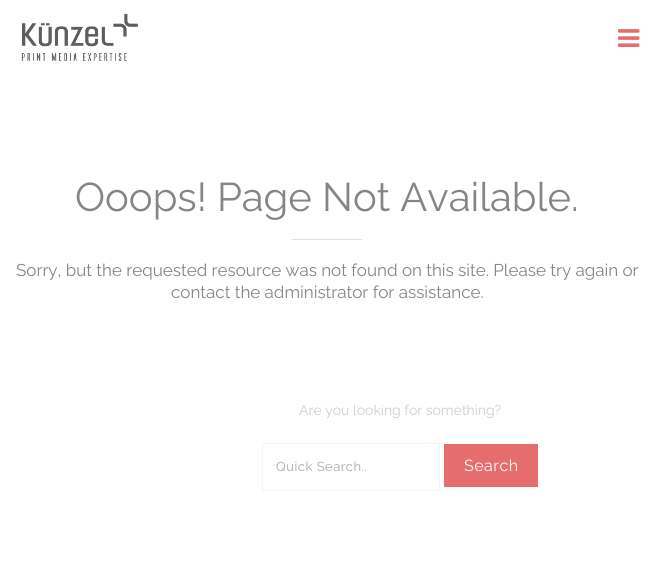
#include <cairo/cairo.h>
#include <math.h>
#include <stddef.h>

static cairo_t *cr;

static void rgb(unsigned color)
{
	cairo_set_source_rgb(cr, (color >> 16) / 255.0, (color >> 8 & 255) / 255.0, (color & 255) / 255.0);
}

static void tracked(double x, double y, const char *s, double letter, double word)
{
	cairo_move_to(cr, x, y);
	while (*s) {
		char ch[5] = {0};
		int n = 0;
		do ch[n++] = *s++; while ((*s & 0xC0) == 0x80);
		cairo_show_text(cr, ch);
		cairo_rel_move_to(cr, letter + word * (*ch == ' '), 0);
	}
}

static void image(const char *path, double x, double y, double w, double h)
{
	cairo_surface_t *image = cairo_image_surface_create_from_png(path);
	cairo_save(cr);
	cairo_set_source_surface(cr, image, x, y);
	cairo_rectangle(cr, x, y, w, h);
	cairo_fill(cr);
	cairo_restore(cr);
	cairo_surface_destroy(image);
}

int main(void) {
	cairo_surface_t *surface = cairo_image_surface_create(CAIRO_FORMAT_RGB24, 654, 588);
	cr = cairo_create(surface);
	cairo_font_options_t *options = cairo_font_options_create();
	cairo_font_options_set_hint_metrics(options, CAIRO_HINT_METRICS_OFF);
	cairo_font_options_set_hint_style(options, CAIRO_HINT_STYLE_NONE);
	cairo_set_font_options(cr, options);
	cairo_set_miter_limit(cr, 4);
	rgb(0xffffff);
	cairo_paint(cr);
	image("img/1.png", 21, 13, 117, 48);
	image("img/2.png", 618, 29, 22, 18);
	rgb(0xe1e1e1);
	cairo_rectangle(cr, 292, 239, 70, 1);
	cairo_fill(cr);
	cairo_rectangle(cr, 262.5, 443.5, 177, 47);
	rgb(0xf4f4f4);
	cairo_set_line_width(cr, 1);
	cairo_stroke(cr);
	rgb(0xe66d6d);
	cairo_rectangle(cr, 444, 444, 94, 43);
	cairo_fill(cr);
	cairo_select_font_face(cr, "Raleway Thin", CAIRO_FONT_SLANT_NORMAL, CAIRO_FONT_WEIGHT_NORMAL);
	cairo_set_font_size(cr, 40);
	rgb(0x858585);
	cairo_move_to(cr, 75, 211);
	cairo_show_text(cr, "Ooops! Page Not Available.");
	cairo_set_font_size(cr, 17);
	cairo_move_to(cr, 16, 276);
	cairo_show_text(cr, "Sorry, but the requested resource was not found on this site. Please try again or");
	cairo_move_to(cr, 171, 298);
	cairo_show_text(cr, "contact the administrator for assistance.");
	cairo_set_font_size(cr, 14);
	rgb(0xcecece);
	cairo_move_to(cr, 299, 415);
	cairo_show_text(cr, "Are you looking for something?");
	cairo_set_font_size(cr, 13);
	rgb(0xa8a8a8);
	tracked(276, 471, "Quick Search..", 0.5, 0);
	cairo_set_font_size(cr, 16);
	rgb(0xffffff);
	tracked(464, 471, "Search", 0.5, 0);
	cairo_surface_write_to_png(surface, "page.png");
	cairo_font_options_destroy(options);
	cairo_destroy(cr);
	cairo_surface_destroy(surface);
	return 0;
}
